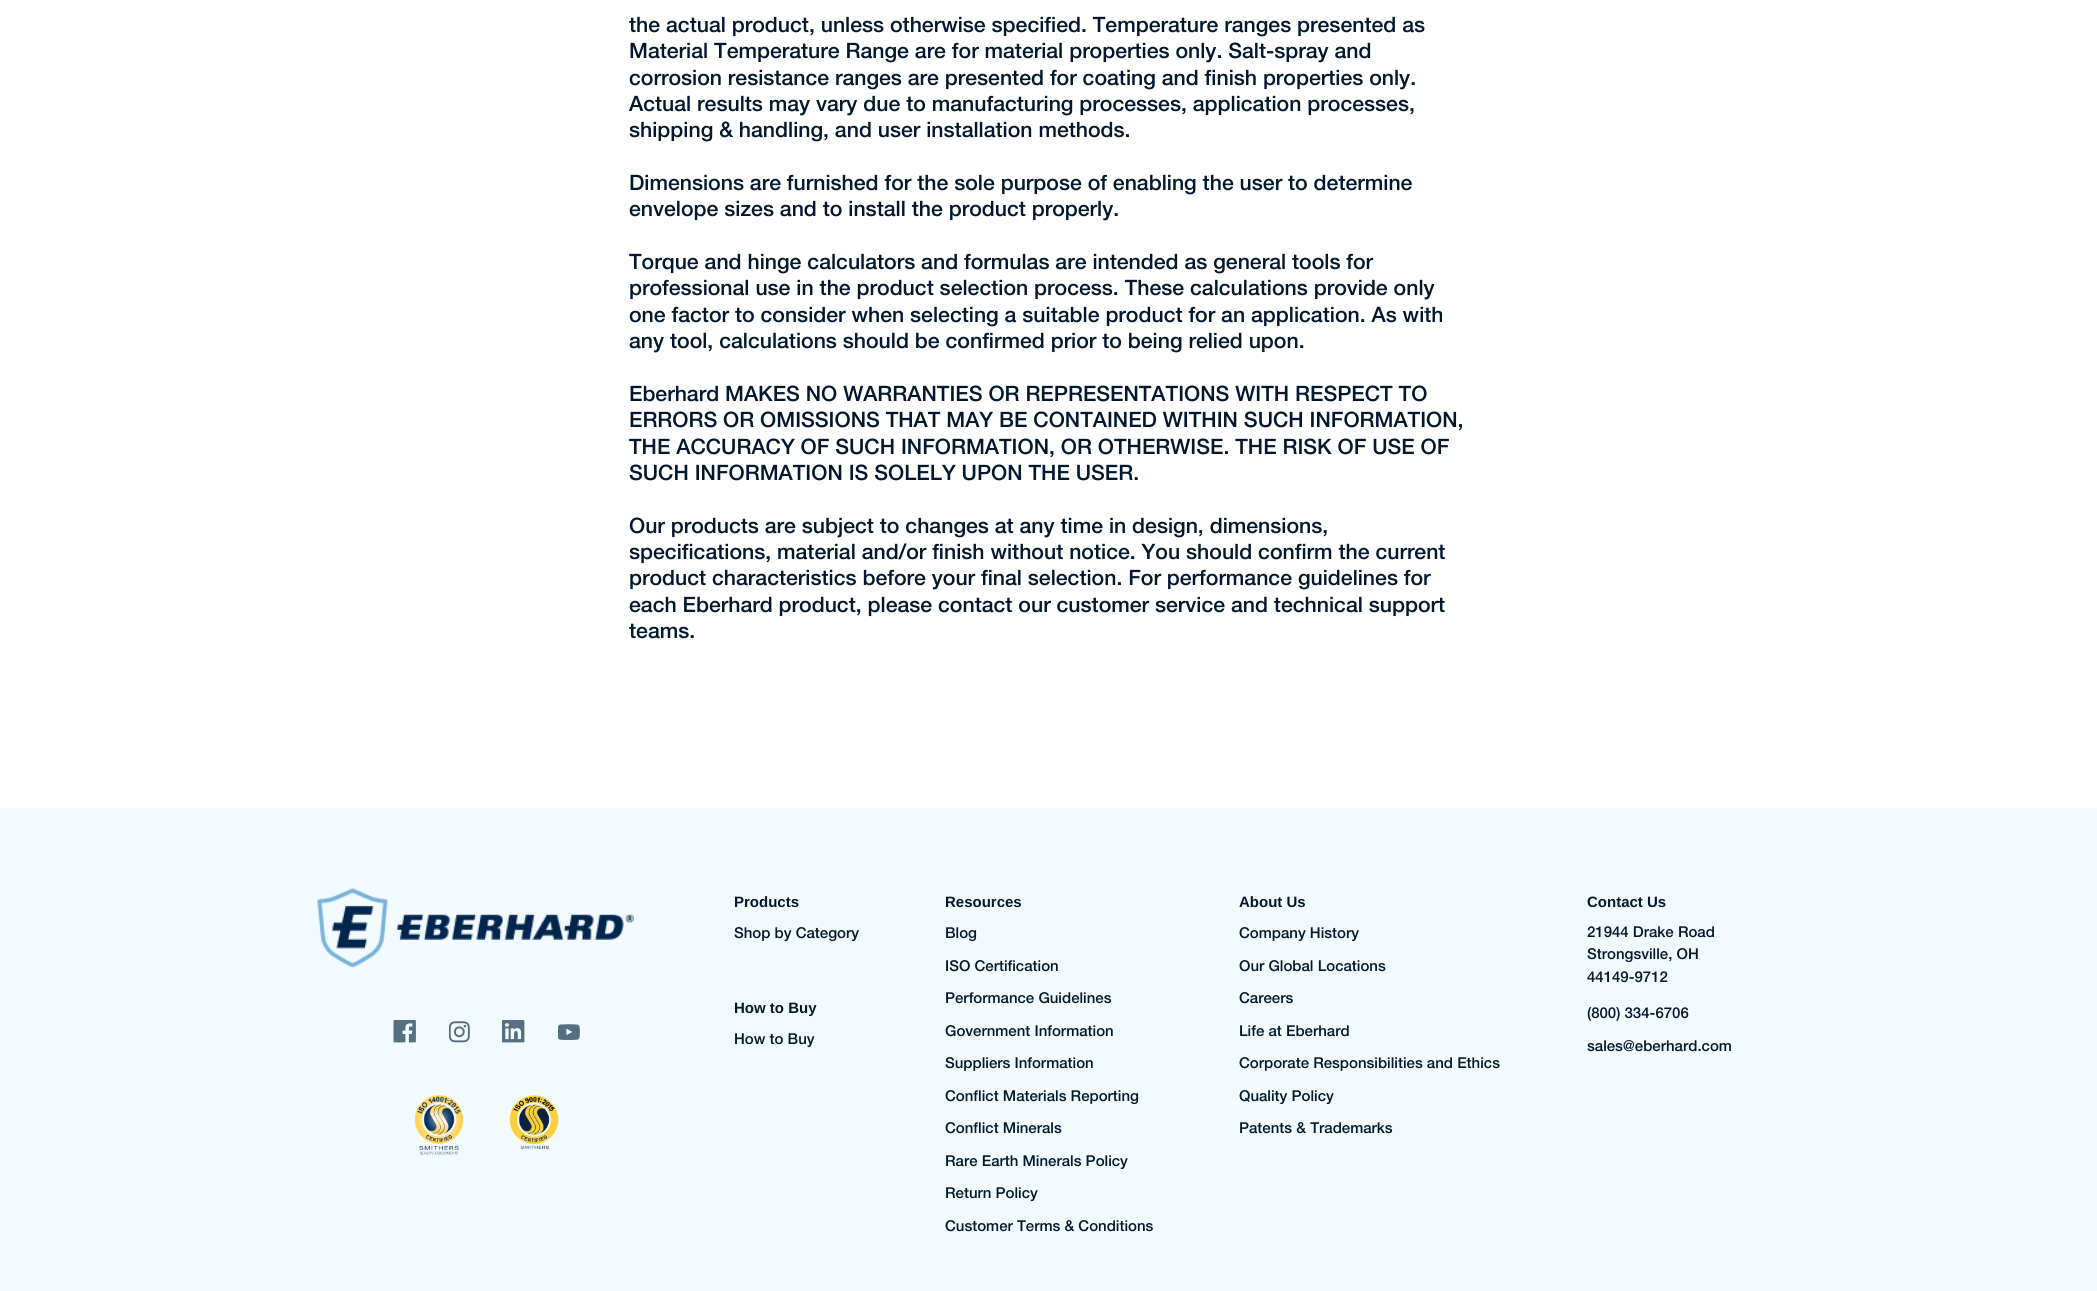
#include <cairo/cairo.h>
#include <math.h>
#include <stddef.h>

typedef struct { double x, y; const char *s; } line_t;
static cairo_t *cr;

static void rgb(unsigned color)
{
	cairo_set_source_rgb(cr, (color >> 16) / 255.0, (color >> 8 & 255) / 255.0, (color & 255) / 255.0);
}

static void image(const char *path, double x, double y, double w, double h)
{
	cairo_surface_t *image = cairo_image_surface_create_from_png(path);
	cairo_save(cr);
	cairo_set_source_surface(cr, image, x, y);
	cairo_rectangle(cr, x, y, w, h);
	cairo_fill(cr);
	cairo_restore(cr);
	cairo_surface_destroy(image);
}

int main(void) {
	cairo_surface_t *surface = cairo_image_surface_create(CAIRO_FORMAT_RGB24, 2097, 1291);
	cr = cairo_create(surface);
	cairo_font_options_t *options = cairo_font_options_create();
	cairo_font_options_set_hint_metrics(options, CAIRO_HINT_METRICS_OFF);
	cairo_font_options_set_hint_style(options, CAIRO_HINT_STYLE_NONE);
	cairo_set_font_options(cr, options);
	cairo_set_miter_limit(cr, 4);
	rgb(0xffffff);
	cairo_paint(cr);
	rgb(0xf2faff);
	cairo_rectangle(cr, 0, 808, 2097, 483);
	cairo_fill(cr);
	image("img/1.png", 317, 888, 317, 80);
	image("img/2.png", 393, 1020, 23, 23);
	image("img/3.png", 449, 1021, 21, 22);
	image("img/4.png", 502, 1020, 23, 23);
	image("img/5.png", 558, 1024, 22, 16);
	image("img/6.png", 414, 1095, 50, 60);
	image("img/7.png", 509, 1095, 50, 54);
	cairo_select_font_face(cr, "Helvetica Neue Medium", CAIRO_FONT_SLANT_NORMAL, CAIRO_FONT_WEIGHT_NORMAL);
	cairo_set_font_size(cr, 21.25);
	rgb(0x00172f);
	{
		static const line_t items[] = {
			{629, 32, "the actual product, unless otherwise specified. Temperature ranges presented as"},
			{629, 58, "Material Temperature Range are for material properties only. Salt-spray and"},
			{629, 85, "corrosion resistance ranges are presented for coating and finish properties only."},
			{629, 111, "Actual results may vary due to manufacturing processes, application processes,"},
			{629, 137, "shipping & handling, and user installation methods."},
			{629, 190, "Dimensions are furnished for the sole purpose of enabling the user to determine"},
			{629, 216, "envelope sizes and to install the product properly."},
			{629, 269, "Torque and hinge calculators and formulas are intended as general tools for"},
			{629, 295, "professional use in the product selection process. These calculations provide only"},
			{629, 322, "one factor to consider when selecting a suitable product for an application. As with"},
			{629, 348, "any tool, calculations should be confirmed prior to being relied upon."},
			{629, 401, "Eberhard MAKES NO WARRANTIES OR REPRESENTATIONS WITH RESPECT TO"},
			{629, 427, "ERRORS OR OMISSIONS THAT MAY BE CONTAINED WITHIN SUCH INFORMATION,"},
			{629, 454, "THE ACCURACY OF SUCH INFORMATION, OR OTHERWISE. THE RISK OF USE OF"},
			{629, 480, "SUCH INFORMATION IS SOLELY UPON THE USER."},
			{629, 533, "Our products are subject to changes at any time in design, dimensions,"},
			{629, 559, "specifications, material and/or finish without notice. You should confirm the current"},
			{629, 585, "product characteristics before your final selection. For performance guidelines for"},
			{629, 612, "each Eberhard product, please contact our customer service and technical support"},
			{629, 638, "teams."},
		};
		for (size_t i = 0; i < sizeof items / sizeof *items; i++) {
			cairo_move_to(cr, items[i].x, items[i].y);
			cairo_show_text(cr, items[i].s);
		}
	}
	cairo_select_font_face(cr, "Liberation Sans", CAIRO_FONT_SLANT_NORMAL, CAIRO_FONT_WEIGHT_BOLD);
	cairo_set_font_size(cr, 15);
	cairo_move_to(cr, 734, 907);
	cairo_show_text(cr, "Products");
	cairo_select_font_face(cr, "Helvetica Neue Medium", CAIRO_FONT_SLANT_NORMAL, CAIRO_FONT_WEIGHT_NORMAL);
	cairo_move_to(cr, 734, 938);
	cairo_show_text(cr, "Shop by Category");
	cairo_select_font_face(cr, "Liberation Sans", CAIRO_FONT_SLANT_NORMAL, CAIRO_FONT_WEIGHT_BOLD);
	cairo_move_to(cr, 945, 907);
	cairo_show_text(cr, "Resources");
	cairo_select_font_face(cr, "Helvetica Neue Medium", CAIRO_FONT_SLANT_NORMAL, CAIRO_FONT_WEIGHT_NORMAL);
	{
		static const line_t items[] = {
			{945, 938, "Blog"},
			{945, 971, "ISO Certification"},
			{945, 1003, "Performance Guidelines"},
			{945, 1036, "Government Information"},
			{945, 1068, "Suppliers Information"},
			{945, 1101, "Conflict Materials Reporting"},
			{945, 1133, "Conflict Minerals"},
			{945, 1166, "Rare Earth Minerals Policy"},
			{945, 1198, "Return Policy"},
			{945, 1231, "Customer Terms & Conditions"},
		};
		for (size_t i = 0; i < sizeof items / sizeof *items; i++) {
			cairo_move_to(cr, items[i].x, items[i].y);
			cairo_show_text(cr, items[i].s);
		}
	}
	cairo_select_font_face(cr, "Liberation Sans", CAIRO_FONT_SLANT_NORMAL, CAIRO_FONT_WEIGHT_BOLD);
	cairo_move_to(cr, 1239, 907);
	cairo_show_text(cr, "About Us");
	cairo_select_font_face(cr, "Helvetica Neue Medium", CAIRO_FONT_SLANT_NORMAL, CAIRO_FONT_WEIGHT_NORMAL);
	{
		static const line_t items[] = {
			{1239, 938, "Company History"},
			{1239, 971, "Our Global Locations"},
			{1239, 1003, "Careers"},
			{1239, 1036, "Life at Eberhard"},
			{1239, 1068, "Corporate Responsibilities and Ethics"},
			{1239, 1101, "Quality Policy"},
			{1239, 1133, "Patents & Trademarks"},
		};
		for (size_t i = 0; i < sizeof items / sizeof *items; i++) {
			cairo_move_to(cr, items[i].x, items[i].y);
			cairo_show_text(cr, items[i].s);
		}
	}
	cairo_select_font_face(cr, "Liberation Sans", CAIRO_FONT_SLANT_NORMAL, CAIRO_FONT_WEIGHT_BOLD);
	cairo_move_to(cr, 1587, 907);
	cairo_show_text(cr, "Contact Us");
	cairo_select_font_face(cr, "Helvetica Neue Medium", CAIRO_FONT_SLANT_NORMAL, CAIRO_FONT_WEIGHT_NORMAL);
	{
		static const line_t items[] = {
			{1587, 937, "21944 Drake Road"},
			{1587, 959, "Strongsville, OH"},
			{1587, 982, "44149-9712"},
			{1587, 1018, "(800) 334-6706"},
			{1587, 1051, "sales@eberhard.com"},
		};
		for (size_t i = 0; i < sizeof items / sizeof *items; i++) {
			cairo_move_to(cr, items[i].x, items[i].y);
			cairo_show_text(cr, items[i].s);
		}
	}
	cairo_select_font_face(cr, "Liberation Sans", CAIRO_FONT_SLANT_NORMAL, CAIRO_FONT_WEIGHT_BOLD);
	cairo_move_to(cr, 734, 1013);
	cairo_show_text(cr, "How to Buy");
	cairo_select_font_face(cr, "Helvetica Neue Medium", CAIRO_FONT_SLANT_NORMAL, CAIRO_FONT_WEIGHT_NORMAL);
	cairo_move_to(cr, 734, 1044);
	cairo_show_text(cr, "How to Buy");
	cairo_surface_write_to_png(surface, "page.png");
	cairo_font_options_destroy(options);
	cairo_destroy(cr);
	cairo_surface_destroy(surface);
	return 0;
}
